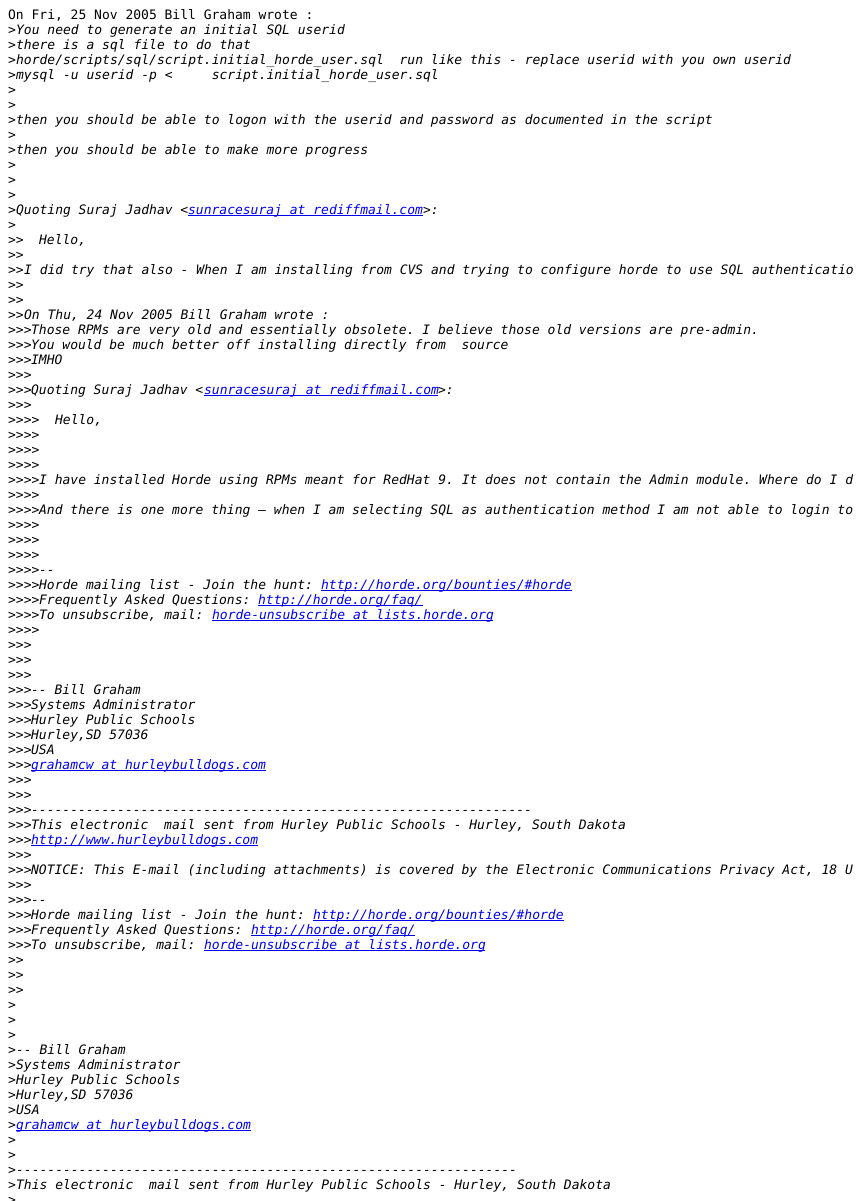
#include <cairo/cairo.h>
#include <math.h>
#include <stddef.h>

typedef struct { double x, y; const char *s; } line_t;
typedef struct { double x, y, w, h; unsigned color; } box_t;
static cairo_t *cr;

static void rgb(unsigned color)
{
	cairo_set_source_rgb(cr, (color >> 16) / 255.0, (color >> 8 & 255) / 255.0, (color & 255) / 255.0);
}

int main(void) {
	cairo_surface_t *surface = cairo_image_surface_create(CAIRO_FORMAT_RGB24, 856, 1201);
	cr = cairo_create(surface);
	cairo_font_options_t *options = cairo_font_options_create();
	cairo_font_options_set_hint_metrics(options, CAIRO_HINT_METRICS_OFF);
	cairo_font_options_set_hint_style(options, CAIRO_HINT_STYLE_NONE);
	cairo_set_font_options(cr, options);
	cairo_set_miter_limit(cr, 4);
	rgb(0xffffff);
	cairo_paint(cr);
	{
		static const box_t items[] = {
			{188, 215, 235, 1, 0x0000ee},
			{204, 395, 234, 1, 0x0000ee},
			{321, 590, 251, 1, 0x0000ee},
			{258, 605, 165, 1, 0x0000ee},
			{212, 620, 281, 1, 0x0000ee},
			{31, 770, 235, 1, 0x0000ee},
			{31, 845, 227, 1, 0x0000ee},
			{313, 920, 251, 1, 0x0000ee},
			{251, 935, 164, 1, 0x0000ee},
			{204, 950, 281, 1, 0x0000ee},
			{16, 1130, 235, 1, 0x0000ee},
		};
		for (size_t i = 0; i < sizeof items / sizeof *items; i++) {
			rgb(items[i].color);
			cairo_rectangle(cr, items[i].x, items[i].y, items[i].w, items[i].h);
			cairo_fill(cr);
		}
	}
	cairo_select_font_face(cr, "DejaVu Sans Mono", CAIRO_FONT_SLANT_NORMAL, CAIRO_FONT_WEIGHT_NORMAL);
	cairo_set_font_size(cr, 13);
	rgb(0x000000);
	cairo_move_to(cr, 8, 19);
	cairo_show_text(cr, "On Fri, 25 Nov 2005 Bill Graham wrote :");
	cairo_move_to(cr, 8, 34);
	cairo_show_text(cr, ">");
	cairo_select_font_face(cr, "DejaVu Sans Mono", CAIRO_FONT_SLANT_ITALIC, CAIRO_FONT_WEIGHT_NORMAL);
	cairo_move_to(cr, 16, 34);
	cairo_show_text(cr, "You need to generate an initial SQL userid");
	cairo_select_font_face(cr, "DejaVu Sans Mono", CAIRO_FONT_SLANT_NORMAL, CAIRO_FONT_WEIGHT_NORMAL);
	cairo_move_to(cr, 8, 49);
	cairo_show_text(cr, ">");
	cairo_select_font_face(cr, "DejaVu Sans Mono", CAIRO_FONT_SLANT_ITALIC, CAIRO_FONT_WEIGHT_NORMAL);
	cairo_move_to(cr, 16, 49);
	cairo_show_text(cr, "there is a sql file to do that");
	cairo_select_font_face(cr, "DejaVu Sans Mono", CAIRO_FONT_SLANT_NORMAL, CAIRO_FONT_WEIGHT_NORMAL);
	cairo_move_to(cr, 8, 64);
	cairo_show_text(cr, ">");
	cairo_select_font_face(cr, "DejaVu Sans Mono", CAIRO_FONT_SLANT_ITALIC, CAIRO_FONT_WEIGHT_NORMAL);
	cairo_move_to(cr, 16, 64);
	cairo_show_text(cr, "horde/scripts/sql/script.initial_horde_user.sql  run like this - replace userid with you own userid");
	cairo_select_font_face(cr, "DejaVu Sans Mono", CAIRO_FONT_SLANT_NORMAL, CAIRO_FONT_WEIGHT_NORMAL);
	cairo_move_to(cr, 8, 79);
	cairo_show_text(cr, ">");
	cairo_select_font_face(cr, "DejaVu Sans Mono", CAIRO_FONT_SLANT_ITALIC, CAIRO_FONT_WEIGHT_NORMAL);
	cairo_move_to(cr, 16, 79);
	cairo_show_text(cr, "mysql -u userid -p <     script.initial_horde_user.sql");
	cairo_select_font_face(cr, "DejaVu Sans Mono", CAIRO_FONT_SLANT_NORMAL, CAIRO_FONT_WEIGHT_NORMAL);
	{
		static const line_t items[] = {
			{8, 94, ">"},
			{8, 109, ">"},
			{8, 124, ">"},
		};
		for (size_t i = 0; i < sizeof items / sizeof *items; i++) {
			cairo_move_to(cr, items[i].x, items[i].y);
			cairo_show_text(cr, items[i].s);
		}
	}
	cairo_select_font_face(cr, "DejaVu Sans Mono", CAIRO_FONT_SLANT_ITALIC, CAIRO_FONT_WEIGHT_NORMAL);
	cairo_move_to(cr, 16, 124);
	cairo_show_text(cr, "then you should be able to logon with the userid and password as documented in the script");
	cairo_select_font_face(cr, "DejaVu Sans Mono", CAIRO_FONT_SLANT_NORMAL, CAIRO_FONT_WEIGHT_NORMAL);
	cairo_move_to(cr, 8, 139);
	cairo_show_text(cr, ">");
	cairo_move_to(cr, 8, 154);
	cairo_show_text(cr, ">");
	cairo_select_font_face(cr, "DejaVu Sans Mono", CAIRO_FONT_SLANT_ITALIC, CAIRO_FONT_WEIGHT_NORMAL);
	cairo_move_to(cr, 16, 154);
	cairo_show_text(cr, "then you should be able to make more progress");
	cairo_select_font_face(cr, "DejaVu Sans Mono", CAIRO_FONT_SLANT_NORMAL, CAIRO_FONT_WEIGHT_NORMAL);
	{
		static const line_t items[] = {
			{8, 169, ">"},
			{8, 184, ">"},
			{8, 199, ">"},
			{8, 214, ">"},
		};
		for (size_t i = 0; i < sizeof items / sizeof *items; i++) {
			cairo_move_to(cr, items[i].x, items[i].y);
			cairo_show_text(cr, items[i].s);
		}
	}
	cairo_select_font_face(cr, "DejaVu Sans Mono", CAIRO_FONT_SLANT_ITALIC, CAIRO_FONT_WEIGHT_NORMAL);
	cairo_move_to(cr, 16, 214);
	cairo_show_text(cr, "Quoting Suraj Jadhav <");
	rgb(0x0000ee);
	cairo_move_to(cr, 188, 214);
	cairo_show_text(cr, "sunracesuraj at rediffmail.com");
	rgb(0x000000);
	cairo_move_to(cr, 423, 214);
	cairo_show_text(cr, ">:");
	cairo_select_font_face(cr, "DejaVu Sans Mono", CAIRO_FONT_SLANT_NORMAL, CAIRO_FONT_WEIGHT_NORMAL);
	cairo_move_to(cr, 8, 229);
	cairo_show_text(cr, ">");
	cairo_move_to(cr, 8, 244);
	cairo_show_text(cr, ">>");
	cairo_select_font_face(cr, "DejaVu Sans Mono", CAIRO_FONT_SLANT_ITALIC, CAIRO_FONT_WEIGHT_NORMAL);
	cairo_move_to(cr, 39, 244);
	cairo_show_text(cr, "Hello,");
	cairo_select_font_face(cr, "DejaVu Sans Mono", CAIRO_FONT_SLANT_NORMAL, CAIRO_FONT_WEIGHT_NORMAL);
	cairo_move_to(cr, 8, 259);
	cairo_show_text(cr, ">>");
	cairo_move_to(cr, 8, 274);
	cairo_show_text(cr, ">>");
	cairo_select_font_face(cr, "DejaVu Sans Mono", CAIRO_FONT_SLANT_ITALIC, CAIRO_FONT_WEIGHT_NORMAL);
	cairo_move_to(cr, 24, 274);
	cairo_show_text(cr, "I did try that also - When I am installing from CVS and trying to configure horde to use SQL authenticatio");
	cairo_select_font_face(cr, "DejaVu Sans Mono", CAIRO_FONT_SLANT_NORMAL, CAIRO_FONT_WEIGHT_NORMAL);
	{
		static const line_t items[] = {
			{8, 289, ">>"},
			{8, 304, ">>"},
			{8, 319, ">>"},
		};
		for (size_t i = 0; i < sizeof items / sizeof *items; i++) {
			cairo_move_to(cr, items[i].x, items[i].y);
			cairo_show_text(cr, items[i].s);
		}
	}
	cairo_select_font_face(cr, "DejaVu Sans Mono", CAIRO_FONT_SLANT_ITALIC, CAIRO_FONT_WEIGHT_NORMAL);
	cairo_move_to(cr, 24, 319);
	cairo_show_text(cr, "On Thu, 24 Nov 2005 Bill Graham wrote :");
	cairo_select_font_face(cr, "DejaVu Sans Mono", CAIRO_FONT_SLANT_NORMAL, CAIRO_FONT_WEIGHT_NORMAL);
	cairo_move_to(cr, 8, 334);
	cairo_show_text(cr, ">>>");
	cairo_select_font_face(cr, "DejaVu Sans Mono", CAIRO_FONT_SLANT_ITALIC, CAIRO_FONT_WEIGHT_NORMAL);
	cairo_move_to(cr, 31, 334);
	cairo_show_text(cr, "Those RPMs are very old and essentially obsolete. I believe those old versions are pre-admin.");
	cairo_select_font_face(cr, "DejaVu Sans Mono", CAIRO_FONT_SLANT_NORMAL, CAIRO_FONT_WEIGHT_NORMAL);
	cairo_move_to(cr, 8, 349);
	cairo_show_text(cr, ">>>");
	cairo_select_font_face(cr, "DejaVu Sans Mono", CAIRO_FONT_SLANT_ITALIC, CAIRO_FONT_WEIGHT_NORMAL);
	cairo_move_to(cr, 31, 349);
	cairo_show_text(cr, "You would be much better off installing directly from  source");
	cairo_select_font_face(cr, "DejaVu Sans Mono", CAIRO_FONT_SLANT_NORMAL, CAIRO_FONT_WEIGHT_NORMAL);
	cairo_move_to(cr, 8, 364);
	cairo_show_text(cr, ">>>");
	cairo_select_font_face(cr, "DejaVu Sans Mono", CAIRO_FONT_SLANT_ITALIC, CAIRO_FONT_WEIGHT_NORMAL);
	cairo_move_to(cr, 31, 364);
	cairo_show_text(cr, "IMHO");
	cairo_select_font_face(cr, "DejaVu Sans Mono", CAIRO_FONT_SLANT_NORMAL, CAIRO_FONT_WEIGHT_NORMAL);
	cairo_move_to(cr, 8, 379);
	cairo_show_text(cr, ">>>");
	cairo_move_to(cr, 8, 394);
	cairo_show_text(cr, ">>>");
	cairo_select_font_face(cr, "DejaVu Sans Mono", CAIRO_FONT_SLANT_ITALIC, CAIRO_FONT_WEIGHT_NORMAL);
	cairo_move_to(cr, 31, 394);
	cairo_show_text(cr, "Quoting Suraj Jadhav <");
	rgb(0x0000ee);
	cairo_move_to(cr, 204, 394);
	cairo_show_text(cr, "sunracesuraj at rediffmail.com");
	rgb(0x000000);
	cairo_move_to(cr, 438, 394);
	cairo_show_text(cr, ">:");
	cairo_select_font_face(cr, "DejaVu Sans Mono", CAIRO_FONT_SLANT_NORMAL, CAIRO_FONT_WEIGHT_NORMAL);
	cairo_move_to(cr, 8, 409);
	cairo_show_text(cr, ">>>");
	cairo_move_to(cr, 8, 424);
	cairo_show_text(cr, ">>>>");
	cairo_select_font_face(cr, "DejaVu Sans Mono", CAIRO_FONT_SLANT_ITALIC, CAIRO_FONT_WEIGHT_NORMAL);
	cairo_move_to(cr, 55, 424);
	cairo_show_text(cr, "Hello,");
	cairo_select_font_face(cr, "DejaVu Sans Mono", CAIRO_FONT_SLANT_NORMAL, CAIRO_FONT_WEIGHT_NORMAL);
	{
		static const line_t items[] = {
			{8, 439, ">>>>"},
			{8, 454, ">>>>"},
			{8, 469, ">>>>"},
			{8, 484, ">>>>"},
		};
		for (size_t i = 0; i < sizeof items / sizeof *items; i++) {
			cairo_move_to(cr, items[i].x, items[i].y);
			cairo_show_text(cr, items[i].s);
		}
	}
	cairo_select_font_face(cr, "DejaVu Sans Mono", CAIRO_FONT_SLANT_ITALIC, CAIRO_FONT_WEIGHT_NORMAL);
	cairo_move_to(cr, 39, 484);
	cairo_show_text(cr, "I have installed Horde using RPMs meant for RedHat 9. It does not contain the Admin module. Where do I d");
	cairo_select_font_face(cr, "DejaVu Sans Mono", CAIRO_FONT_SLANT_NORMAL, CAIRO_FONT_WEIGHT_NORMAL);
	cairo_move_to(cr, 8, 499);
	cairo_show_text(cr, ">>>>");
	cairo_move_to(cr, 8, 514);
	cairo_show_text(cr, ">>>>");
	cairo_select_font_face(cr, "DejaVu Sans Mono", CAIRO_FONT_SLANT_ITALIC, CAIRO_FONT_WEIGHT_NORMAL);
	cairo_move_to(cr, 39, 514);
	cairo_show_text(cr, "And there is one more thing – when I am selecting SQL as authentication method I am not able to login to");
	cairo_select_font_face(cr, "DejaVu Sans Mono", CAIRO_FONT_SLANT_NORMAL, CAIRO_FONT_WEIGHT_NORMAL);
	{
		static const line_t items[] = {
			{8, 529, ">>>>"},
			{8, 544, ">>>>"},
			{8, 559, ">>>>"},
			{8, 574, ">>>>"},
		};
		for (size_t i = 0; i < sizeof items / sizeof *items; i++) {
			cairo_move_to(cr, items[i].x, items[i].y);
			cairo_show_text(cr, items[i].s);
		}
	}
	cairo_select_font_face(cr, "DejaVu Sans Mono", CAIRO_FONT_SLANT_ITALIC, CAIRO_FONT_WEIGHT_NORMAL);
	cairo_move_to(cr, 39, 574);
	cairo_show_text(cr, "--");
	cairo_select_font_face(cr, "DejaVu Sans Mono", CAIRO_FONT_SLANT_NORMAL, CAIRO_FONT_WEIGHT_NORMAL);
	cairo_move_to(cr, 8, 589);
	cairo_show_text(cr, ">>>>");
	cairo_select_font_face(cr, "DejaVu Sans Mono", CAIRO_FONT_SLANT_ITALIC, CAIRO_FONT_WEIGHT_NORMAL);
	cairo_move_to(cr, 39, 589);
	cairo_show_text(cr, "Horde mailing list - Join the hunt:");
	rgb(0x0000ee);
	cairo_move_to(cr, 321, 589);
	cairo_show_text(cr, "http://horde.org/bounties/#horde");
	cairo_select_font_face(cr, "DejaVu Sans Mono", CAIRO_FONT_SLANT_NORMAL, CAIRO_FONT_WEIGHT_NORMAL);
	rgb(0x000000);
	cairo_move_to(cr, 8, 604);
	cairo_show_text(cr, ">>>>");
	cairo_select_font_face(cr, "DejaVu Sans Mono", CAIRO_FONT_SLANT_ITALIC, CAIRO_FONT_WEIGHT_NORMAL);
	cairo_move_to(cr, 39, 604);
	cairo_show_text(cr, "Frequently Asked Questions:");
	rgb(0x0000ee);
	cairo_move_to(cr, 258, 604);
	cairo_show_text(cr, "http://horde.org/faq/");
	cairo_select_font_face(cr, "DejaVu Sans Mono", CAIRO_FONT_SLANT_NORMAL, CAIRO_FONT_WEIGHT_NORMAL);
	rgb(0x000000);
	cairo_move_to(cr, 8, 619);
	cairo_show_text(cr, ">>>>");
	cairo_select_font_face(cr, "DejaVu Sans Mono", CAIRO_FONT_SLANT_ITALIC, CAIRO_FONT_WEIGHT_NORMAL);
	cairo_move_to(cr, 39, 619);
	cairo_show_text(cr, "To unsubscribe, mail:");
	rgb(0x0000ee);
	cairo_move_to(cr, 212, 619);
	cairo_show_text(cr, "horde-unsubscribe at lists.horde.org");
	cairo_select_font_face(cr, "DejaVu Sans Mono", CAIRO_FONT_SLANT_NORMAL, CAIRO_FONT_WEIGHT_NORMAL);
	rgb(0x000000);
	{
		static const line_t items[] = {
			{8, 634, ">>>>"},
			{8, 649, ">>>"},
			{8, 664, ">>>"},
			{8, 679, ">>>"},
			{8, 694, ">>>"},
		};
		for (size_t i = 0; i < sizeof items / sizeof *items; i++) {
			cairo_move_to(cr, items[i].x, items[i].y);
			cairo_show_text(cr, items[i].s);
		}
	}
	cairo_select_font_face(cr, "DejaVu Sans Mono", CAIRO_FONT_SLANT_ITALIC, CAIRO_FONT_WEIGHT_NORMAL);
	cairo_move_to(cr, 31, 694);
	cairo_show_text(cr, "-- Bill Graham");
	cairo_select_font_face(cr, "DejaVu Sans Mono", CAIRO_FONT_SLANT_NORMAL, CAIRO_FONT_WEIGHT_NORMAL);
	cairo_move_to(cr, 8, 709);
	cairo_show_text(cr, ">>>");
	cairo_select_font_face(cr, "DejaVu Sans Mono", CAIRO_FONT_SLANT_ITALIC, CAIRO_FONT_WEIGHT_NORMAL);
	cairo_move_to(cr, 31, 709);
	cairo_show_text(cr, "Systems Administrator");
	cairo_select_font_face(cr, "DejaVu Sans Mono", CAIRO_FONT_SLANT_NORMAL, CAIRO_FONT_WEIGHT_NORMAL);
	cairo_move_to(cr, 8, 724);
	cairo_show_text(cr, ">>>");
	cairo_select_font_face(cr, "DejaVu Sans Mono", CAIRO_FONT_SLANT_ITALIC, CAIRO_FONT_WEIGHT_NORMAL);
	cairo_move_to(cr, 31, 724);
	cairo_show_text(cr, "Hurley Public Schools");
	cairo_select_font_face(cr, "DejaVu Sans Mono", CAIRO_FONT_SLANT_NORMAL, CAIRO_FONT_WEIGHT_NORMAL);
	cairo_move_to(cr, 8, 739);
	cairo_show_text(cr, ">>>");
	cairo_select_font_face(cr, "DejaVu Sans Mono", CAIRO_FONT_SLANT_ITALIC, CAIRO_FONT_WEIGHT_NORMAL);
	cairo_move_to(cr, 31, 739);
	cairo_show_text(cr, "Hurley,SD 57036");
	cairo_select_font_face(cr, "DejaVu Sans Mono", CAIRO_FONT_SLANT_NORMAL, CAIRO_FONT_WEIGHT_NORMAL);
	cairo_move_to(cr, 8, 754);
	cairo_show_text(cr, ">>>");
	cairo_select_font_face(cr, "DejaVu Sans Mono", CAIRO_FONT_SLANT_ITALIC, CAIRO_FONT_WEIGHT_NORMAL);
	cairo_move_to(cr, 31, 754);
	cairo_show_text(cr, "USA");
	cairo_select_font_face(cr, "DejaVu Sans Mono", CAIRO_FONT_SLANT_NORMAL, CAIRO_FONT_WEIGHT_NORMAL);
	cairo_move_to(cr, 8, 769);
	cairo_show_text(cr, ">>>");
	cairo_select_font_face(cr, "DejaVu Sans Mono", CAIRO_FONT_SLANT_ITALIC, CAIRO_FONT_WEIGHT_NORMAL);
	rgb(0x0000ee);
	cairo_move_to(cr, 31, 769);
	cairo_show_text(cr, "grahamcw at hurleybulldogs.com");
	cairo_select_font_face(cr, "DejaVu Sans Mono", CAIRO_FONT_SLANT_NORMAL, CAIRO_FONT_WEIGHT_NORMAL);
	rgb(0x000000);
	{
		static const line_t items[] = {
			{8, 784, ">>>"},
			{8, 799, ">>>"},
			{8, 814, ">>>"},
		};
		for (size_t i = 0; i < sizeof items / sizeof *items; i++) {
			cairo_move_to(cr, items[i].x, items[i].y);
			cairo_show_text(cr, items[i].s);
		}
	}
	cairo_select_font_face(cr, "DejaVu Sans Mono", CAIRO_FONT_SLANT_ITALIC, CAIRO_FONT_WEIGHT_NORMAL);
	cairo_move_to(cr, 31, 814);
	cairo_show_text(cr, "----------------------------------------------------------------");
	cairo_select_font_face(cr, "DejaVu Sans Mono", CAIRO_FONT_SLANT_NORMAL, CAIRO_FONT_WEIGHT_NORMAL);
	cairo_move_to(cr, 8, 829);
	cairo_show_text(cr, ">>>");
	cairo_select_font_face(cr, "DejaVu Sans Mono", CAIRO_FONT_SLANT_ITALIC, CAIRO_FONT_WEIGHT_NORMAL);
	cairo_move_to(cr, 31, 829);
	cairo_show_text(cr, "This electronic  mail sent from Hurley Public Schools - Hurley, South Dakota");
	cairo_select_font_face(cr, "DejaVu Sans Mono", CAIRO_FONT_SLANT_NORMAL, CAIRO_FONT_WEIGHT_NORMAL);
	cairo_move_to(cr, 8, 844);
	cairo_show_text(cr, ">>>");
	cairo_select_font_face(cr, "DejaVu Sans Mono", CAIRO_FONT_SLANT_ITALIC, CAIRO_FONT_WEIGHT_NORMAL);
	rgb(0x0000ee);
	cairo_move_to(cr, 31, 844);
	cairo_show_text(cr, "http://www.hurleybulldogs.com");
	cairo_select_font_face(cr, "DejaVu Sans Mono", CAIRO_FONT_SLANT_NORMAL, CAIRO_FONT_WEIGHT_NORMAL);
	rgb(0x000000);
	cairo_move_to(cr, 8, 859);
	cairo_show_text(cr, ">>>");
	cairo_move_to(cr, 8, 874);
	cairo_show_text(cr, ">>>");
	cairo_select_font_face(cr, "DejaVu Sans Mono", CAIRO_FONT_SLANT_ITALIC, CAIRO_FONT_WEIGHT_NORMAL);
	cairo_move_to(cr, 31, 874);
	cairo_show_text(cr, "NOTICE: This E-mail (including attachments) is covered by the Electronic Communications Privacy Act, 18 U");
	cairo_select_font_face(cr, "DejaVu Sans Mono", CAIRO_FONT_SLANT_NORMAL, CAIRO_FONT_WEIGHT_NORMAL);
	cairo_move_to(cr, 8, 889);
	cairo_show_text(cr, ">>>");
	cairo_move_to(cr, 8, 904);
	cairo_show_text(cr, ">>>");
	cairo_select_font_face(cr, "DejaVu Sans Mono", CAIRO_FONT_SLANT_ITALIC, CAIRO_FONT_WEIGHT_NORMAL);
	cairo_move_to(cr, 31, 904);
	cairo_show_text(cr, "--");
	cairo_select_font_face(cr, "DejaVu Sans Mono", CAIRO_FONT_SLANT_NORMAL, CAIRO_FONT_WEIGHT_NORMAL);
	cairo_move_to(cr, 8, 919);
	cairo_show_text(cr, ">>>");
	cairo_select_font_face(cr, "DejaVu Sans Mono", CAIRO_FONT_SLANT_ITALIC, CAIRO_FONT_WEIGHT_NORMAL);
	cairo_move_to(cr, 31, 919);
	cairo_show_text(cr, "Horde mailing list - Join the hunt:");
	rgb(0x0000ee);
	cairo_move_to(cr, 313, 919);
	cairo_show_text(cr, "http://horde.org/bounties/#horde");
	cairo_select_font_face(cr, "DejaVu Sans Mono", CAIRO_FONT_SLANT_NORMAL, CAIRO_FONT_WEIGHT_NORMAL);
	rgb(0x000000);
	cairo_move_to(cr, 8, 934);
	cairo_show_text(cr, ">>>");
	cairo_select_font_face(cr, "DejaVu Sans Mono", CAIRO_FONT_SLANT_ITALIC, CAIRO_FONT_WEIGHT_NORMAL);
	cairo_move_to(cr, 31, 934);
	cairo_show_text(cr, "Frequently Asked Questions:");
	rgb(0x0000ee);
	cairo_move_to(cr, 251, 934);
	cairo_show_text(cr, "http://horde.org/faq/");
	cairo_select_font_face(cr, "DejaVu Sans Mono", CAIRO_FONT_SLANT_NORMAL, CAIRO_FONT_WEIGHT_NORMAL);
	rgb(0x000000);
	cairo_move_to(cr, 8, 949);
	cairo_show_text(cr, ">>>");
	cairo_select_font_face(cr, "DejaVu Sans Mono", CAIRO_FONT_SLANT_ITALIC, CAIRO_FONT_WEIGHT_NORMAL);
	cairo_move_to(cr, 31, 949);
	cairo_show_text(cr, "To unsubscribe, mail:");
	rgb(0x0000ee);
	cairo_move_to(cr, 204, 949);
	cairo_show_text(cr, "horde-unsubscribe at lists.horde.org");
	cairo_select_font_face(cr, "DejaVu Sans Mono", CAIRO_FONT_SLANT_NORMAL, CAIRO_FONT_WEIGHT_NORMAL);
	rgb(0x000000);
	{
		static const line_t items[] = {
			{8, 964, ">>"},
			{8, 979, ">>"},
			{8, 994, ">>"},
			{8, 1009, ">"},
			{8, 1024, ">"},
			{8, 1039, ">"},
			{8, 1054, ">"},
		};
		for (size_t i = 0; i < sizeof items / sizeof *items; i++) {
			cairo_move_to(cr, items[i].x, items[i].y);
			cairo_show_text(cr, items[i].s);
		}
	}
	cairo_select_font_face(cr, "DejaVu Sans Mono", CAIRO_FONT_SLANT_ITALIC, CAIRO_FONT_WEIGHT_NORMAL);
	cairo_move_to(cr, 16, 1054);
	cairo_show_text(cr, "-- Bill Graham");
	cairo_select_font_face(cr, "DejaVu Sans Mono", CAIRO_FONT_SLANT_NORMAL, CAIRO_FONT_WEIGHT_NORMAL);
	cairo_move_to(cr, 8, 1069);
	cairo_show_text(cr, ">");
	cairo_select_font_face(cr, "DejaVu Sans Mono", CAIRO_FONT_SLANT_ITALIC, CAIRO_FONT_WEIGHT_NORMAL);
	cairo_move_to(cr, 16, 1069);
	cairo_show_text(cr, "Systems Administrator");
	cairo_select_font_face(cr, "DejaVu Sans Mono", CAIRO_FONT_SLANT_NORMAL, CAIRO_FONT_WEIGHT_NORMAL);
	cairo_move_to(cr, 8, 1084);
	cairo_show_text(cr, ">");
	cairo_select_font_face(cr, "DejaVu Sans Mono", CAIRO_FONT_SLANT_ITALIC, CAIRO_FONT_WEIGHT_NORMAL);
	cairo_move_to(cr, 16, 1084);
	cairo_show_text(cr, "Hurley Public Schools");
	cairo_select_font_face(cr, "DejaVu Sans Mono", CAIRO_FONT_SLANT_NORMAL, CAIRO_FONT_WEIGHT_NORMAL);
	cairo_move_to(cr, 8, 1099);
	cairo_show_text(cr, ">");
	cairo_select_font_face(cr, "DejaVu Sans Mono", CAIRO_FONT_SLANT_ITALIC, CAIRO_FONT_WEIGHT_NORMAL);
	cairo_move_to(cr, 16, 1099);
	cairo_show_text(cr, "Hurley,SD 57036");
	cairo_select_font_face(cr, "DejaVu Sans Mono", CAIRO_FONT_SLANT_NORMAL, CAIRO_FONT_WEIGHT_NORMAL);
	cairo_move_to(cr, 8, 1114);
	cairo_show_text(cr, ">");
	cairo_select_font_face(cr, "DejaVu Sans Mono", CAIRO_FONT_SLANT_ITALIC, CAIRO_FONT_WEIGHT_NORMAL);
	cairo_move_to(cr, 16, 1114);
	cairo_show_text(cr, "USA");
	cairo_select_font_face(cr, "DejaVu Sans Mono", CAIRO_FONT_SLANT_NORMAL, CAIRO_FONT_WEIGHT_NORMAL);
	cairo_move_to(cr, 8, 1129);
	cairo_show_text(cr, ">");
	cairo_select_font_face(cr, "DejaVu Sans Mono", CAIRO_FONT_SLANT_ITALIC, CAIRO_FONT_WEIGHT_NORMAL);
	rgb(0x0000ee);
	cairo_move_to(cr, 16, 1129);
	cairo_show_text(cr, "grahamcw at hurleybulldogs.com");
	cairo_select_font_face(cr, "DejaVu Sans Mono", CAIRO_FONT_SLANT_NORMAL, CAIRO_FONT_WEIGHT_NORMAL);
	rgb(0x000000);
	{
		static const line_t items[] = {
			{8, 1144, ">"},
			{8, 1159, ">"},
			{8, 1174, ">"},
		};
		for (size_t i = 0; i < sizeof items / sizeof *items; i++) {
			cairo_move_to(cr, items[i].x, items[i].y);
			cairo_show_text(cr, items[i].s);
		}
	}
	cairo_select_font_face(cr, "DejaVu Sans Mono", CAIRO_FONT_SLANT_ITALIC, CAIRO_FONT_WEIGHT_NORMAL);
	cairo_move_to(cr, 16, 1174);
	cairo_show_text(cr, "----------------------------------------------------------------");
	cairo_select_font_face(cr, "DejaVu Sans Mono", CAIRO_FONT_SLANT_NORMAL, CAIRO_FONT_WEIGHT_NORMAL);
	cairo_move_to(cr, 8, 1189);
	cairo_show_text(cr, ">");
	cairo_select_font_face(cr, "DejaVu Sans Mono", CAIRO_FONT_SLANT_ITALIC, CAIRO_FONT_WEIGHT_NORMAL);
	cairo_move_to(cr, 16, 1189);
	cairo_show_text(cr, "This electronic  mail sent from Hurley Public Schools - Hurley, South Dakota");
	cairo_select_font_face(cr, "DejaVu Sans Mono", CAIRO_FONT_SLANT_NORMAL, CAIRO_FONT_WEIGHT_NORMAL);
	cairo_move_to(cr, 8, 1204);
	cairo_show_text(cr, ">");
	cairo_surface_write_to_png(surface, "page.png");
	cairo_font_options_destroy(options);
	cairo_destroy(cr);
	cairo_surface_destroy(surface);
	return 0;
}
